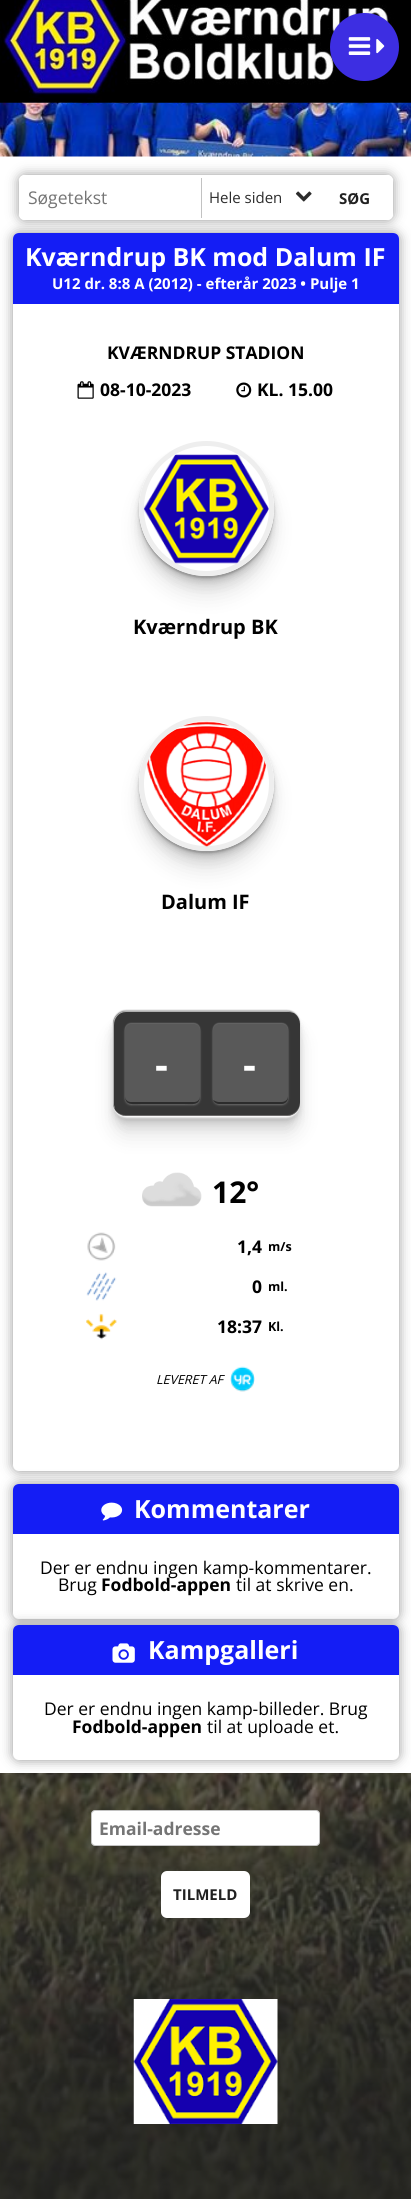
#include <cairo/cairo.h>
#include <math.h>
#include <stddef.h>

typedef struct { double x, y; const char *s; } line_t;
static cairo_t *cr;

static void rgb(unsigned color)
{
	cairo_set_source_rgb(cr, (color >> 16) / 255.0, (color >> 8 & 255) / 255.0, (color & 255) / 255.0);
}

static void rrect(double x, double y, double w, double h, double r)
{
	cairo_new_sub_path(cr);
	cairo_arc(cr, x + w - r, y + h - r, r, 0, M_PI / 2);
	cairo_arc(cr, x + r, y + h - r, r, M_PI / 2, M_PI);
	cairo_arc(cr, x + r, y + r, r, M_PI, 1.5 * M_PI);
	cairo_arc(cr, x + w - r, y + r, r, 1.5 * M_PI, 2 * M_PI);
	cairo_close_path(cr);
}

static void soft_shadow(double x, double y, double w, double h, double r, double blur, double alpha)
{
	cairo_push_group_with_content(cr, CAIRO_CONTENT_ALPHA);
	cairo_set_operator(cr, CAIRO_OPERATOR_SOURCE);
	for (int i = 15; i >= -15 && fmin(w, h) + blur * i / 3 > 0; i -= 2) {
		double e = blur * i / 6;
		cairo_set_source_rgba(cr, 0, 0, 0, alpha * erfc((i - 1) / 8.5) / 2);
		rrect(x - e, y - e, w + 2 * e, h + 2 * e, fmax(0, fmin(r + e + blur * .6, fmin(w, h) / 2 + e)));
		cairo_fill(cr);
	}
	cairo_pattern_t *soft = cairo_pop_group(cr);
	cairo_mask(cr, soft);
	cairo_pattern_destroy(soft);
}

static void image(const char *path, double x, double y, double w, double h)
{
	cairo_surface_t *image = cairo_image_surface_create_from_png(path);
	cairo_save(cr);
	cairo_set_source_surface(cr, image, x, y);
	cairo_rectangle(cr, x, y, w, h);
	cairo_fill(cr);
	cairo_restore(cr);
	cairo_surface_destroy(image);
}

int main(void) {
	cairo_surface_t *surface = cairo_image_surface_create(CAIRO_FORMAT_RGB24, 411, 2199);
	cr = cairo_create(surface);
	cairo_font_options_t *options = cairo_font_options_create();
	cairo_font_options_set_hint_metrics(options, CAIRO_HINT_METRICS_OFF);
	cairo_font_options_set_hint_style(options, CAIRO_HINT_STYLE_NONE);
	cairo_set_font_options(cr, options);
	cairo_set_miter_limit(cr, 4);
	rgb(0xffffff);
	cairo_paint(cr);
	rgb(0x303030);
	soft_shadow(13, 233, 386, 1238, 6, 6, 0.5);
	rgb(0xffffff);
	rrect(13, 233, 386, 1238, 6);
	cairo_fill(cr);
	rgb(0x141df5);
	cairo_new_path(cr);
	cairo_move_to(cr, 19, 233);
	cairo_line_to(cr, 393, 233);
	cairo_curve_to(cr, 396.5, 233, 399, 235.5, 399, 239);
	cairo_line_to(cr, 399, 304);
	cairo_line_to(cr, 13, 304);
	cairo_line_to(cr, 13, 239);
	cairo_curve_to(cr, 13, 235.5, 15.5, 233, 19, 233);
	cairo_close_path(cr);
	cairo_fill(cr);
	cairo_save(cr);
	cairo_set_fill_rule(cr, CAIRO_FILL_RULE_EVEN_ODD);
	cairo_new_path(cr);
	cairo_move_to(cr, 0, 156);
	cairo_line_to(cr, 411, 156);
	cairo_line_to(cr, 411, 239);
	cairo_line_to(cr, 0, 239);
	cairo_close_path(cr);
	cairo_move_to(cr, 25, 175);
	cairo_line_to(cr, 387, 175);
	cairo_curve_to(cr, 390.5, 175, 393, 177.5, 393, 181);
	cairo_line_to(cr, 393, 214);
	cairo_curve_to(cr, 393, 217.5, 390.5, 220, 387, 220);
	cairo_line_to(cr, 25, 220);
	cairo_curve_to(cr, 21.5, 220, 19, 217.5, 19, 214);
	cairo_line_to(cr, 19, 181);
	cairo_curve_to(cr, 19, 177.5, 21.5, 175, 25, 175);
	cairo_close_path(cr);
	cairo_clip(cr);
	rgb(0x303030);
	soft_shadow(19, 175, 374, 45, 6, 6, 0.5);
	cairo_restore(cr);
	image("img/1.png", 0, 102, 411, 55);
	image("img/2.png", 0, 0, 411, 103);
	rgb(0x000000);
	soft_shadow(330, 14, 69, 69, 34.5, 1, 0.24);
	soft_shadow(330, 14, 69, 69, 34.5, 2, 0.12);
	rgb(0x3d2ee2);
	rrect(330, 13, 69, 68, 34);
	cairo_fill(cr);
	image("img/3.png", 348, 37, 23, 18);
	image("img/4.png", 376, 39, 9, 15);
	rrect(20.5, 176.5, 371, 42, 4.5);
	rgb(0xffffff);
	cairo_set_line_width(cr, 3);
	cairo_stroke(cr);
	rgb(0xc2c2c2);
	cairo_rectangle(cr, 201, 178, 1, 40);
	cairo_fill(cr);
	image("img/5.png", 295, 191, 17, 11);
	image("img/6.png", 77, 381, 17, 18);
	image("img/7.png", 236, 382, 16, 16);
	cairo_save(cr);
	cairo_set_fill_rule(cr, CAIRO_FILL_RULE_EVEN_ODD);
	cairo_new_path(cr);
	cairo_move_to(cr, 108, 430);
	cairo_line_to(cr, 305, 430);
	cairo_line_to(cr, 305, 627);
	cairo_line_to(cr, 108, 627);
	cairo_close_path(cr);
	cairo_move_to(cr, 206.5, 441);
	cairo_curve_to(cr, 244, 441, 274, 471, 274, 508.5);
	cairo_curve_to(cr, 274, 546, 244, 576, 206.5, 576);
	cairo_curve_to(cr, 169, 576, 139, 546, 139, 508.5);
	cairo_curve_to(cr, 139, 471, 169, 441, 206.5, 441);
	cairo_close_path(cr);
	cairo_clip(cr);
	rgb(0x000000);
	soft_shadow(139, 461, 135, 135, 67.5, 10, 0.1);
	cairo_restore(cr);
	cairo_save(cr);
	cairo_set_fill_rule(cr, CAIRO_FILL_RULE_EVEN_ODD);
	cairo_new_path(cr);
	cairo_move_to(cr, 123, 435);
	cairo_line_to(cr, 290, 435);
	cairo_line_to(cr, 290, 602);
	cairo_line_to(cr, 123, 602);
	cairo_close_path(cr);
	cairo_move_to(cr, 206.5, 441);
	cairo_curve_to(cr, 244, 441, 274, 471, 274, 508.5);
	cairo_curve_to(cr, 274, 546, 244, 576, 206.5, 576);
	cairo_curve_to(cr, 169, 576, 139, 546, 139, 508.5);
	cairo_curve_to(cr, 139, 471, 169, 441, 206.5, 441);
	cairo_close_path(cr);
	cairo_clip(cr);
	rgb(0x000000);
	soft_shadow(139, 451, 135, 135, 67.5, 5, 0.1);
	cairo_restore(cr);
	cairo_save(cr);
	cairo_set_fill_rule(cr, CAIRO_FILL_RULE_EVEN_ODD);
	cairo_new_path(cr);
	cairo_move_to(cr, 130, 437);
	cairo_line_to(cr, 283, 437);
	cairo_line_to(cr, 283, 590);
	cairo_line_to(cr, 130, 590);
	cairo_close_path(cr);
	cairo_move_to(cr, 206.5, 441);
	cairo_curve_to(cr, 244, 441, 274, 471, 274, 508.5);
	cairo_curve_to(cr, 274, 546, 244, 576, 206.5, 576);
	cairo_curve_to(cr, 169, 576, 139, 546, 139, 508.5);
	cairo_curve_to(cr, 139, 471, 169, 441, 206.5, 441);
	cairo_close_path(cr);
	cairo_clip(cr);
	rgb(0x000000);
	soft_shadow(139, 446, 135, 135, 67.5, 2.5, 0.1);
	cairo_restore(cr);
	cairo_save(cr);
	cairo_set_fill_rule(cr, CAIRO_FILL_RULE_EVEN_ODD);
	cairo_new_path(cr);
	cairo_move_to(cr, 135, 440);
	cairo_line_to(cr, 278, 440);
	cairo_line_to(cr, 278, 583);
	cairo_line_to(cr, 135, 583);
	cairo_close_path(cr);
	cairo_move_to(cr, 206.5, 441);
	cairo_curve_to(cr, 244, 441, 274, 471, 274, 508.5);
	cairo_curve_to(cr, 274, 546, 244, 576, 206.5, 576);
	cairo_curve_to(cr, 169, 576, 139, 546, 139, 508.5);
	cairo_curve_to(cr, 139, 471, 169, 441, 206.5, 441);
	cairo_close_path(cr);
	cairo_clip(cr);
	rgb(0x000000);
	soft_shadow(139, 444, 135, 135, 67.5, 1, 0.1);
	cairo_restore(cr);
	cairo_save(cr);
	cairo_set_fill_rule(cr, CAIRO_FILL_RULE_EVEN_ODD);
	cairo_new_path(cr);
	cairo_move_to(cr, 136, 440);
	cairo_line_to(cr, 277, 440);
	cairo_line_to(cr, 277, 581);
	cairo_line_to(cr, 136, 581);
	cairo_close_path(cr);
	cairo_move_to(cr, 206.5, 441);
	cairo_curve_to(cr, 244, 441, 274, 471, 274, 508.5);
	cairo_curve_to(cr, 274, 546, 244, 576, 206.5, 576);
	cairo_curve_to(cr, 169, 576, 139, 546, 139, 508.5);
	cairo_curve_to(cr, 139, 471, 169, 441, 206.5, 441);
	cairo_close_path(cr);
	cairo_clip(cr);
	rgb(0x000000);
	soft_shadow(139, 443, 135, 135, 67.5, 0.5, 0.1);
	cairo_restore(cr);
	cairo_arc(cr, 206.5, 508.5, 65, 0, 2 * M_PI);
	rgb(0xeeeeee);
	cairo_set_line_width(cr, 5);
	cairo_stroke(cr);
	image("img/8.png", 143, 454, 126, 110);
	cairo_save(cr);
	cairo_set_fill_rule(cr, CAIRO_FILL_RULE_EVEN_ODD);
	cairo_new_path(cr);
	cairo_move_to(cr, 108, 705);
	cairo_line_to(cr, 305, 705);
	cairo_line_to(cr, 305, 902);
	cairo_line_to(cr, 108, 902);
	cairo_close_path(cr);
	cairo_move_to(cr, 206.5, 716);
	cairo_curve_to(cr, 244, 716, 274, 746, 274, 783.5);
	cairo_curve_to(cr, 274, 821, 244, 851, 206.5, 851);
	cairo_curve_to(cr, 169, 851, 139, 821, 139, 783.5);
	cairo_curve_to(cr, 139, 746, 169, 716, 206.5, 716);
	cairo_close_path(cr);
	cairo_clip(cr);
	rgb(0x000000);
	soft_shadow(139, 736, 135, 135, 67.5, 10, 0.1);
	cairo_restore(cr);
	cairo_save(cr);
	cairo_set_fill_rule(cr, CAIRO_FILL_RULE_EVEN_ODD);
	cairo_new_path(cr);
	cairo_move_to(cr, 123, 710);
	cairo_line_to(cr, 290, 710);
	cairo_line_to(cr, 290, 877);
	cairo_line_to(cr, 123, 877);
	cairo_close_path(cr);
	cairo_move_to(cr, 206.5, 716);
	cairo_curve_to(cr, 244, 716, 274, 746, 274, 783.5);
	cairo_curve_to(cr, 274, 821, 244, 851, 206.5, 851);
	cairo_curve_to(cr, 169, 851, 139, 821, 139, 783.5);
	cairo_curve_to(cr, 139, 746, 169, 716, 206.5, 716);
	cairo_close_path(cr);
	cairo_clip(cr);
	rgb(0x000000);
	soft_shadow(139, 726, 135, 135, 67.5, 5, 0.1);
	cairo_restore(cr);
	cairo_save(cr);
	cairo_set_fill_rule(cr, CAIRO_FILL_RULE_EVEN_ODD);
	cairo_new_path(cr);
	cairo_move_to(cr, 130, 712);
	cairo_line_to(cr, 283, 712);
	cairo_line_to(cr, 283, 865);
	cairo_line_to(cr, 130, 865);
	cairo_close_path(cr);
	cairo_move_to(cr, 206.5, 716);
	cairo_curve_to(cr, 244, 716, 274, 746, 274, 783.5);
	cairo_curve_to(cr, 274, 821, 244, 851, 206.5, 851);
	cairo_curve_to(cr, 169, 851, 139, 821, 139, 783.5);
	cairo_curve_to(cr, 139, 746, 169, 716, 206.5, 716);
	cairo_close_path(cr);
	cairo_clip(cr);
	rgb(0x000000);
	soft_shadow(139, 721, 135, 135, 67.5, 2.5, 0.1);
	cairo_restore(cr);
	cairo_save(cr);
	cairo_set_fill_rule(cr, CAIRO_FILL_RULE_EVEN_ODD);
	cairo_new_path(cr);
	cairo_move_to(cr, 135, 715);
	cairo_line_to(cr, 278, 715);
	cairo_line_to(cr, 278, 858);
	cairo_line_to(cr, 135, 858);
	cairo_close_path(cr);
	cairo_move_to(cr, 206.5, 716);
	cairo_curve_to(cr, 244, 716, 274, 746, 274, 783.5);
	cairo_curve_to(cr, 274, 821, 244, 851, 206.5, 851);
	cairo_curve_to(cr, 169, 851, 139, 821, 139, 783.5);
	cairo_curve_to(cr, 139, 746, 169, 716, 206.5, 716);
	cairo_close_path(cr);
	cairo_clip(cr);
	rgb(0x000000);
	soft_shadow(139, 719, 135, 135, 67.5, 1, 0.1);
	cairo_restore(cr);
	cairo_save(cr);
	cairo_set_fill_rule(cr, CAIRO_FILL_RULE_EVEN_ODD);
	cairo_new_path(cr);
	cairo_move_to(cr, 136, 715);
	cairo_line_to(cr, 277, 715);
	cairo_line_to(cr, 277, 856);
	cairo_line_to(cr, 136, 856);
	cairo_close_path(cr);
	cairo_move_to(cr, 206.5, 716);
	cairo_curve_to(cr, 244, 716, 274, 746, 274, 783.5);
	cairo_curve_to(cr, 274, 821, 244, 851, 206.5, 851);
	cairo_curve_to(cr, 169, 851, 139, 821, 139, 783.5);
	cairo_curve_to(cr, 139, 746, 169, 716, 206.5, 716);
	cairo_close_path(cr);
	cairo_clip(cr);
	rgb(0x000000);
	soft_shadow(139, 718, 135, 135, 67.5, 0.5, 0.1);
	cairo_restore(cr);
	cairo_arc(cr, 206.5, 783.5, 65, 0, 2 * M_PI);
	cairo_stroke(cr);
	image("img/9.png", 146, 721, 120, 126);
	rgb(0x000000);
	soft_shadow(113, 1031, 187, 105, 13, 10, 0.1);
	soft_shadow(113, 1021, 187, 105, 13, 5, 0.1);
	soft_shadow(113, 1016, 187, 105, 13, 2.5, 0.1);
	soft_shadow(113, 1014, 187, 105, 13, 1, 0.1);
	soft_shadow(113, 1013, 187, 105, 13, 0.5, 0.1);
	rgb(0xbebebe);
	soft_shadow(113, 1010, 187, 105, 13, 0.5, 1);
	rgb(0xffffff);
	soft_shadow(113, 1013, 187, 105, 13, 1, 1);
	rgb(0x363636);
	rrect(113, 1011, 187, 105, 13);
	cairo_fill(cr);
	cairo_set_source_rgba(cr, 1, 1, 1, 0.6);
	cairo_new_path(cr);
	cairo_move_to(cr, 126, 1012);
	cairo_line_to(cr, 289, 1012);
	cairo_curve_to(cr, 291, 1012, 293, 1013, 295, 1013);
	cairo_curve_to(cr, 292, 1012, 290, 1011, 287, 1011);
	cairo_line_to(cr, 126, 1011);
	cairo_curve_to(cr, 119, 1011, 113, 1017, 113, 1024);
	cairo_line_to(cr, 113, 1103);
	cairo_curve_to(cr, 113, 1105, 114, 1108, 115, 1109);
	cairo_line_to(cr, 114, 1105);
	cairo_line_to(cr, 114, 1025);
	cairo_curve_to(cr, 114, 1018, 119, 1012, 126, 1012);
	cairo_close_path(cr);
	cairo_fill(cr);
	cairo_set_source_rgba(cr, 0.647, 0.627, 0.627, 0.5);
	cairo_new_path(cr);
	cairo_move_to(cr, 116, 1111);
	cairo_curve_to(cr, 118, 1114, 122, 1116, 126, 1116);
	cairo_line_to(cr, 287, 1116);
	cairo_curve_to(cr, 294, 1116, 300, 1110, 300, 1103);
	cairo_line_to(cr, 300, 1102);
	cairo_curve_to(cr, 300, 1109, 294, 1115, 288, 1115);
	cairo_line_to(cr, 125, 1115);
	cairo_curve_to(cr, 121, 1115, 118, 1113, 116, 1111);
	cairo_close_path(cr);
	cairo_fill(cr);
	rgb(0x666666);
	soft_shadow(125, 1023, 75, 80, 6, 0.5, 1);
	rgb(0x6c6c6c);
	soft_shadow(125, 1025, 75, 80, 6, 1, 1);
	rgb(0x595959);
	rrect(125, 1024, 75, 80, 6);
	cairo_fill(cr);
	rgb(0x2c2c2c);
	cairo_new_path(cr);
	cairo_move_to(cr, 125, 1096);
	cairo_curve_to(cr, 125, 1106, 133, 1104, 142, 1104);
	cairo_line_to(cr, 184, 1104);
	cairo_curve_to(cr, 192, 1104, 200, 1106, 200, 1096);
	cairo_curve_to(cr, 200, 1100, 197, 1102, 194, 1102);
	cairo_line_to(cr, 131, 1102);
	cairo_curve_to(cr, 128, 1102, 125, 1100, 125, 1096);
	cairo_close_path(cr);
	cairo_fill(cr);
	rgb(0x666666);
	soft_shadow(213, 1023, 75, 80, 6, 0.5, 1);
	rgb(0x6c6c6c);
	soft_shadow(213, 1025, 75, 80, 6, 1, 1);
	rgb(0x595959);
	rrect(213, 1024, 75, 80, 6);
	cairo_fill(cr);
	cairo_set_source_rgba(cr, 0, 0, 0, 0.5);
	cairo_new_path(cr);
	cairo_move_to(cr, 213, 1100);
	cairo_curve_to(cr, 214, 1102, 216, 1104, 219, 1104);
	cairo_line_to(cr, 282, 1104);
	cairo_curve_to(cr, 285, 1104, 288, 1101, 288, 1098);
	cairo_line_to(cr, 288, 1096);
	cairo_curve_to(cr, 288, 1100, 285, 1102, 281, 1102);
	cairo_line_to(cr, 219, 1102);
	cairo_curve_to(cr, 217, 1102, 215, 1101, 213, 1100);
	cairo_close_path(cr);
	cairo_fill(cr);
	image("img/10.png", 142, 1172, 60, 35);
	image("img/11.png", 87, 1232, 29, 29);
	image("img/12.png", 86, 1272, 31, 29);
	image("img/13.png", 86, 1313, 31, 27);
	image("img/14.png", 230, 1366, 25, 26);
	rgb(0x303030);
	soft_shadow(13, 1484, 386, 135, 6, 6, 0.5);
	rgb(0xffffff);
	rrect(13, 1484, 386, 135, 6);
	cairo_fill(cr);
	rgb(0x141df5);
	cairo_new_path(cr);
	cairo_move_to(cr, 19, 1484);
	cairo_line_to(cr, 393, 1484);
	cairo_curve_to(cr, 396.5, 1484, 399, 1486.5, 399, 1490);
	cairo_line_to(cr, 399, 1534);
	cairo_line_to(cr, 13, 1534);
	cairo_line_to(cr, 13, 1490);
	cairo_curve_to(cr, 13, 1486.5, 15.5, 1484, 19, 1484);
	cairo_close_path(cr);
	cairo_fill(cr);
	image("img/15.png", 101, 1502, 22, 19);
	image("img/18.png", 0, 1773, 411, 426);
	rgb(0x303030);
	soft_shadow(13, 1625, 386, 135, 6, 6, 0.5);
	rgb(0xffffff);
	rrect(13, 1625, 386, 135, 6);
	cairo_fill(cr);
	rgb(0x141df5);
	cairo_new_path(cr);
	cairo_move_to(cr, 19, 1625);
	cairo_line_to(cr, 393, 1625);
	cairo_curve_to(cr, 396.5, 1625, 399, 1627.5, 399, 1631);
	cairo_line_to(cr, 399, 1675);
	cairo_line_to(cr, 13, 1675);
	cairo_line_to(cr, 13, 1631);
	cairo_curve_to(cr, 13, 1627.5, 15.5, 1625, 19, 1625);
	cairo_close_path(cr);
	cairo_fill(cr);
	image("img/16.png", 112, 1643, 23, 20);
	cairo_set_source_rgba(cr, 0.2, 0.2, 0.2, 0.6);
	cairo_rectangle(cr, 0, 1773, 411, 426);
	cairo_fill(cr);
	rgb(0xffffff);
	rrect(91.5, 1810.5, 228, 35, 3.5);
	cairo_fill_preserve(cr);
	rgb(0xc2c2c2);
	cairo_set_line_width(cr, 1);
	cairo_stroke(cr);
	rgb(0xffffff);
	rrect(161, 1871, 89, 47, 6);
	cairo_fill(cr);
	image("img/17.png", 133, 1999, 145, 125);
	cairo_select_font_face(cr, "Open Sans", CAIRO_FONT_SLANT_NORMAL, CAIRO_FONT_WEIGHT_NORMAL);
	cairo_set_font_size(cr, 17.5);
	rgb(0x757575);
	cairo_move_to(cr, 28, 204);
	cairo_show_text(cr, "Søgetekst");
	cairo_set_font_size(cr, 15);
	rgb(0x2c2c2c);
	cairo_move_to(cr, 209, 203);
	cairo_show_text(cr, "Hele siden");
	cairo_select_font_face(cr, "Open Sans", CAIRO_FONT_SLANT_NORMAL, CAIRO_FONT_WEIGHT_BOLD);
	rgb(0x212121);
	cairo_move_to(cr, 339, 204);
	cairo_show_text(cr, "SØG");
	cairo_set_font_size(cr, 25);
	rgb(0xffffff);
	cairo_move_to(cr, 25, 266);
	cairo_show_text(cr, "Kværndrup BK mod Dalum IF");
	cairo_set_font_size(cr, 15);
	cairo_move_to(cr, 52, 289);
	cairo_show_text(cr, "U12 dr. 8:8 A (2012) - efterår 2023 • Pulje 1");
	cairo_set_font_size(cr, 17.5);
	rgb(0x000000);
	{
		static const line_t items[] = {
			{107, 359, "KVÆRNDRUP STADION"},
			{100, 396, "08-10-2023"},
			{257, 396, "KL. 15.00"},
		};
		for (size_t i = 0; i < sizeof items / sizeof *items; i++) {
			cairo_move_to(cr, items[i].x, items[i].y);
			cairo_show_text(cr, items[i].s);
		}
	}
	cairo_set_font_size(cr, 20);
	cairo_move_to(cr, 133, 634);
	cairo_show_text(cr, "Kværndrup BK");
	cairo_move_to(cr, 161, 909);
	cairo_show_text(cr, "Dalum IF");
	cairo_set_font_size(cr, 40);
	rgb(0xffffff);
	cairo_move_to(cr, 155, 1079);
	cairo_show_text(cr, "-");
	cairo_move_to(cr, 243, 1079);
	cairo_show_text(cr, "-");
	cairo_set_font_size(cr, 30);
	rgb(0x000000);
	cairo_move_to(cr, 212, 1203);
	cairo_show_text(cr, "12°");
	cairo_set_font_size(cr, 17.5);
	cairo_move_to(cr, 237, 1253);
	cairo_show_text(cr, "1,4");
	cairo_set_font_size(cr, 12.5);
	cairo_move_to(cr, 268, 1251);
	cairo_show_text(cr, "m/s");
	cairo_set_font_size(cr, 17.5);
	cairo_move_to(cr, 252, 1293);
	cairo_show_text(cr, "0");
	cairo_set_font_size(cr, 12.5);
	cairo_move_to(cr, 268, 1291);
	cairo_show_text(cr, "ml.");
	cairo_set_font_size(cr, 17.5);
	cairo_move_to(cr, 217, 1333);
	cairo_show_text(cr, "18:37");
	cairo_set_font_size(cr, 12.5);
	cairo_move_to(cr, 268, 1331);
	cairo_show_text(cr, "Kl.");
	cairo_select_font_face(cr, "Open Sans", CAIRO_FONT_SLANT_ITALIC, CAIRO_FONT_WEIGHT_NORMAL);
	cairo_move_to(cr, 156, 1384);
	cairo_show_text(cr, "LEVERET AF");
	cairo_select_font_face(cr, "Open Sans", CAIRO_FONT_SLANT_NORMAL, CAIRO_FONT_WEIGHT_BOLD);
	cairo_set_font_size(cr, 25);
	rgb(0xffffff);
	cairo_move_to(cr, 134, 1518);
	cairo_show_text(cr, "Kommentarer");
	cairo_select_font_face(cr, "Open Sans", CAIRO_FONT_SLANT_NORMAL, CAIRO_FONT_WEIGHT_NORMAL);
	cairo_set_font_size(cr, 17.5);
	rgb(0x000000);
	cairo_move_to(cr, 40, 1574);
	cairo_show_text(cr, "Der er endnu ingen kamp-kommentarer.");
	cairo_move_to(cr, 58, 1591);
	cairo_show_text(cr, "Brug");
	cairo_select_font_face(cr, "Open Sans", CAIRO_FONT_SLANT_NORMAL, CAIRO_FONT_WEIGHT_BOLD);
	cairo_move_to(cr, 101, 1591);
	cairo_show_text(cr, "Fodbold-appen");
	cairo_select_font_face(cr, "Open Sans", CAIRO_FONT_SLANT_NORMAL, CAIRO_FONT_WEIGHT_NORMAL);
	cairo_move_to(cr, 236, 1591);
	cairo_show_text(cr, "til at skrive en.");
	cairo_select_font_face(cr, "Open Sans", CAIRO_FONT_SLANT_NORMAL, CAIRO_FONT_WEIGHT_BOLD);
	cairo_set_font_size(cr, 25);
	rgb(0xffffff);
	cairo_move_to(cr, 148, 1659);
	cairo_show_text(cr, "Kampgalleri");
	cairo_select_font_face(cr, "Open Sans", CAIRO_FONT_SLANT_NORMAL, CAIRO_FONT_WEIGHT_NORMAL);
	cairo_set_font_size(cr, 17.5);
	rgb(0x000000);
	cairo_move_to(cr, 44, 1715);
	cairo_show_text(cr, "Der er endnu ingen kamp-billeder. Brug");
	cairo_select_font_face(cr, "Open Sans", CAIRO_FONT_SLANT_NORMAL, CAIRO_FONT_WEIGHT_BOLD);
	cairo_move_to(cr, 72, 1733);
	cairo_show_text(cr, "Fodbold-appen");
	cairo_select_font_face(cr, "Open Sans", CAIRO_FONT_SLANT_NORMAL, CAIRO_FONT_WEIGHT_NORMAL);
	cairo_move_to(cr, 207, 1733);
	cairo_show_text(cr, "til at uploade et.");
	cairo_select_font_face(cr, "Open Sans", CAIRO_FONT_SLANT_NORMAL, CAIRO_FONT_WEIGHT_BOLD);
	rgb(0x757575);
	cairo_move_to(cr, 99, 1835);
	cairo_show_text(cr, "Email-adresse");
	cairo_set_font_size(cr, 15);
	rgb(0x212121);
	cairo_move_to(cr, 173, 1900);
	cairo_show_text(cr, "TILMELD");
	cairo_surface_write_to_png(surface, "page.png");
	cairo_font_options_destroy(options);
	cairo_destroy(cr);
	cairo_surface_destroy(surface);
	return 0;
}
